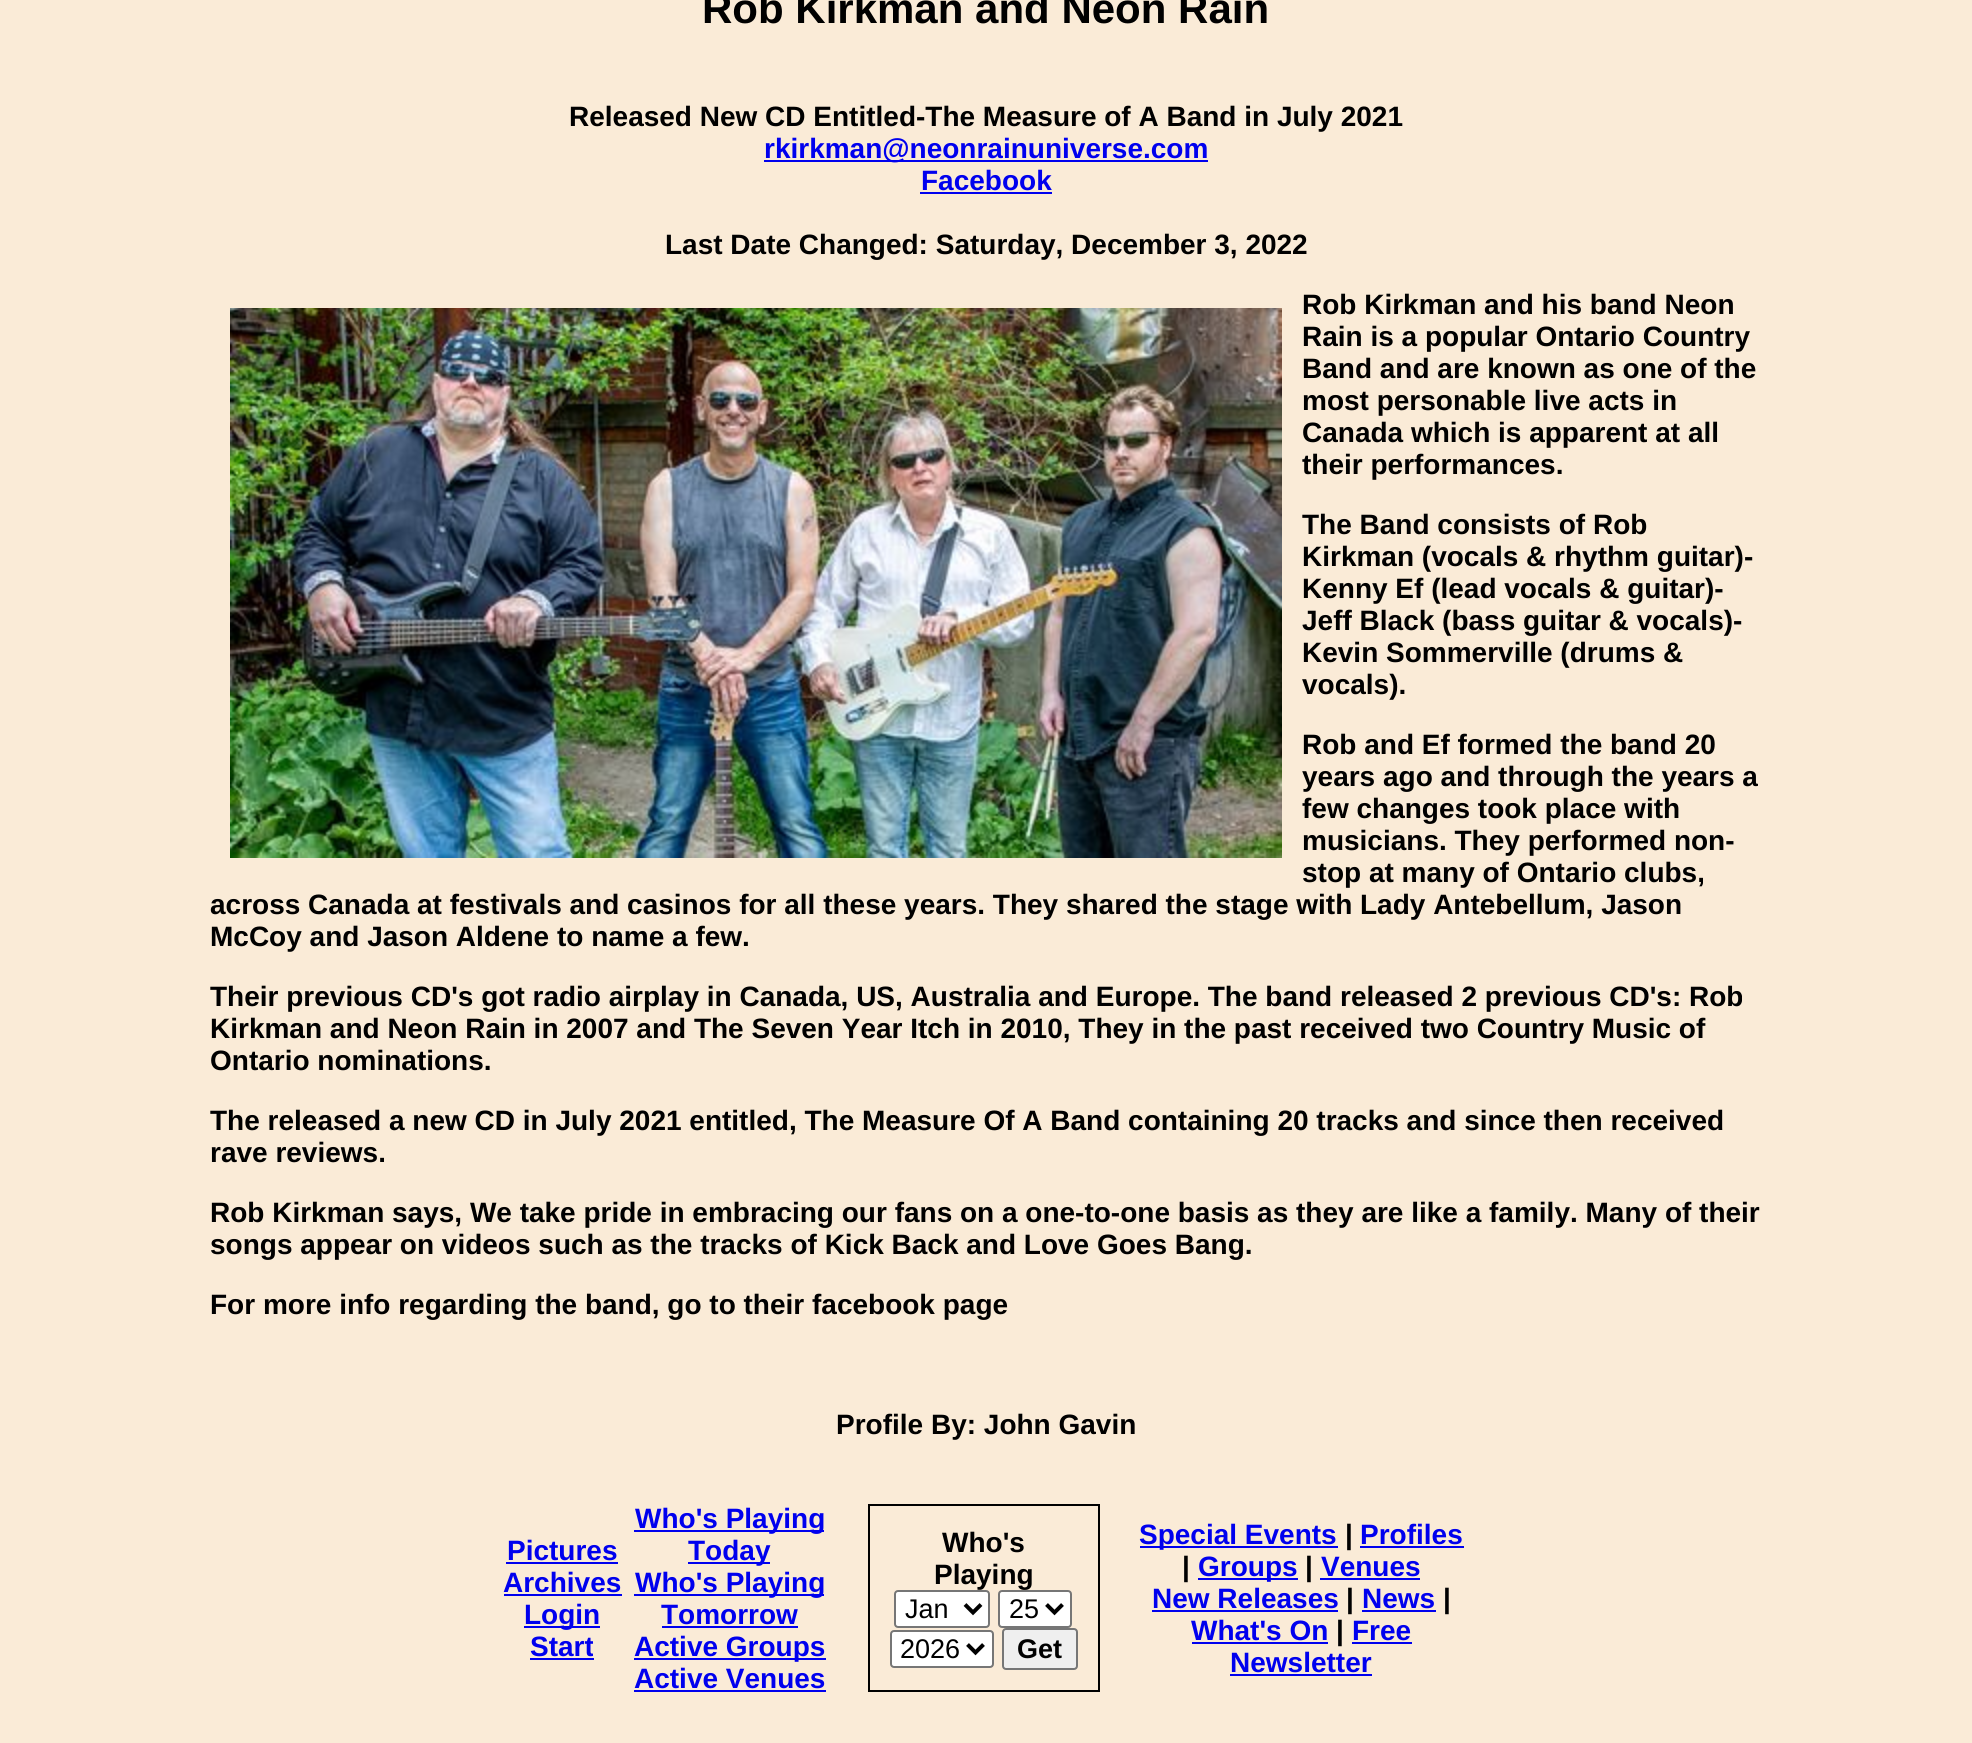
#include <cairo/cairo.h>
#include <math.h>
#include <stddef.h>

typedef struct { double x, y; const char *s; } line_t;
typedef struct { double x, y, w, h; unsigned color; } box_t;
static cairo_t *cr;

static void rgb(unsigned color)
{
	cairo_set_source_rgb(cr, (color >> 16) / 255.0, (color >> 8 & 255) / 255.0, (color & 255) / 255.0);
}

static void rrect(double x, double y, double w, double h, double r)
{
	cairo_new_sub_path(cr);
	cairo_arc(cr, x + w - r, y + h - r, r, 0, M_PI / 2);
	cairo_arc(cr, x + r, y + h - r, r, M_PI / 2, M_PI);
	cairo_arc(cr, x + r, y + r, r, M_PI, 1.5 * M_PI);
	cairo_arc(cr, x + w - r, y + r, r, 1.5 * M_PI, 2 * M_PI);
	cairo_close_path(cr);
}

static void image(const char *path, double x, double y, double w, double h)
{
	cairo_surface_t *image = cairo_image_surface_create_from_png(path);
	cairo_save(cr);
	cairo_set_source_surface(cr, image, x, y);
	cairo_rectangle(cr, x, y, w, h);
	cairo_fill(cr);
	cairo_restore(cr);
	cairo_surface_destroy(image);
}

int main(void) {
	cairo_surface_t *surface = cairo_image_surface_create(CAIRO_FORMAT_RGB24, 1972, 1743);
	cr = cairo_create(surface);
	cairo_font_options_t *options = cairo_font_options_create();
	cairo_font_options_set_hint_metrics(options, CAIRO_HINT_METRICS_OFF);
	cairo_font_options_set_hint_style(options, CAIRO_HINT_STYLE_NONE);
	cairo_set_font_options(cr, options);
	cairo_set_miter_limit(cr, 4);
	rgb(0xfaebd7);
	cairo_paint(cr);
	rgb(0x0000ee);
	cairo_rectangle(cr, 764, 160, 444, 2);
	cairo_fill(cr);
	cairo_rectangle(cr, 920, 192, 132, 2);
	cairo_fill(cr);
	image("img/1.png", 230, 308, 1052, 550);
	{
		static const box_t items[] = {
			{506, 1562, 112, 2, 0x0000ee},
			{504, 1594, 118, 2, 0x0000ee},
			{524, 1626, 76, 2, 0x0000ee},
			{530, 1658, 64, 2, 0x0000ee},
			{634, 1530, 190, 2, 0x0000ee},
			{688, 1562, 82, 2, 0x0000ee},
			{634, 1594, 190, 2, 0x0000ee},
			{662, 1626, 136, 2, 0x0000ee},
			{634, 1658, 192, 2, 0x0000ee},
			{634, 1690, 192, 2, 0x0000ee},
			{868, 1504, 232, 2, 0x000000},
			{1098, 1504, 2, 188, 0x000000},
			{868, 1690, 232, 2, 0x000000},
			{868, 1504, 2, 188, 0x000000},
		};
		for (size_t i = 0; i < sizeof items / sizeof *items; i++) {
			rgb(items[i].color);
			cairo_rectangle(cr, items[i].x, items[i].y, items[i].w, items[i].h);
			cairo_fill(cr);
		}
	}
	rgb(0xffffff);
	rrect(895, 1591, 94, 36, 3);
	cairo_fill_preserve(cr);
	rgb(0x767676);
	cairo_stroke(cr);
	cairo_new_path(cr);
	cairo_move_to(cr, 965, 1604.5);
	cairo_line_to(cr, 973, 1612.5);
	cairo_line_to(cr, 981, 1604.5);
	rgb(0x000000);
	cairo_set_line_width(cr, 4);
	cairo_stroke(cr);
	rgb(0xffffff);
	rrect(999, 1591, 72, 36, 3);
	cairo_fill_preserve(cr);
	rgb(0x767676);
	cairo_set_line_width(cr, 2);
	cairo_stroke(cr);
	cairo_new_path(cr);
	cairo_move_to(cr, 1046.5, 1604.5);
	cairo_line_to(cr, 1054.5, 1612.5);
	cairo_line_to(cr, 1062.5, 1604.5);
	rgb(0x000000);
	cairo_set_line_width(cr, 4);
	cairo_stroke(cr);
	rgb(0xffffff);
	rrect(891, 1631, 102, 36, 3);
	cairo_fill_preserve(cr);
	rgb(0x767676);
	cairo_set_line_width(cr, 2);
	cairo_stroke(cr);
	cairo_new_path(cr);
	cairo_move_to(cr, 967.5, 1644.5);
	cairo_line_to(cr, 975.5, 1652.5);
	cairo_line_to(cr, 983.5, 1644.5);
	rgb(0x000000);
	cairo_set_line_width(cr, 4);
	cairo_stroke(cr);
	rgb(0xefefef);
	rrect(1003, 1629, 74, 40, 3);
	cairo_fill_preserve(cr);
	rgb(0x767676);
	cairo_set_line_width(cr, 2);
	cairo_stroke(cr);
	{
		static const box_t items[] = {
			{1140, 1546, 198, 2, 0x0000ee},
			{1360, 1546, 104, 2, 0x0000ee},
			{1198, 1578, 100, 2, 0x0000ee},
			{1320, 1578, 100, 2, 0x0000ee},
			{1152, 1610, 186, 2, 0x0000ee},
			{1362, 1610, 74, 2, 0x0000ee},
			{1192, 1642, 136, 2, 0x0000ee},
			{1352, 1642, 60, 2, 0x0000ee},
			{1230, 1674, 142, 2, 0x0000ee},
		};
		for (size_t i = 0; i < sizeof items / sizeof *items; i++) {
			rgb(items[i].color);
			cairo_rectangle(cr, items[i].x, items[i].y, items[i].w, items[i].h);
			cairo_fill(cr);
		}
	}
	cairo_select_font_face(cr, "Liberation Sans", CAIRO_FONT_SLANT_NORMAL, CAIRO_FONT_WEIGHT_BOLD);
	cairo_set_font_size(cr, 42);
	rgb(0x000000);
	cairo_move_to(cr, 702, 23);
	cairo_show_text(cr, "Rob Kirkman and Neon Rain");
	cairo_set_font_size(cr, 28);
	cairo_move_to(cr, 569, 126);
	cairo_show_text(cr, "Released New CD Entitled-The Measure of A Band in July 2021");
	rgb(0x0000ee);
	cairo_move_to(cr, 764, 158);
	cairo_show_text(cr, "rkirkman@neonrainuniverse.com");
	cairo_move_to(cr, 921, 190);
	cairo_show_text(cr, "Facebook");
	rgb(0x000000);
	{
		static const line_t items[] = {
			{665, 254, "Last Date Changed: Saturday, December 3, 2022"},
			{1302, 314, "Rob Kirkman and his band Neon"},
			{1302, 346, "Rain is a popular Ontario Country"},
			{1302, 378, "Band and are known as one of the"},
			{1302, 410, "most personable live acts in"},
			{1302, 442, "Canada which is apparent at all"},
			{1302, 474, "their performances."},
			{1302, 534, "The Band consists of Rob"},
			{1302, 566, "Kirkman (vocals & rhythm guitar)-"},
			{1302, 598, "Kenny Ef (lead vocals & guitar)-"},
			{1302, 630, "Jeff Black (bass guitar & vocals)-"},
			{1302, 662, "Kevin Sommerville (drums &"},
			{1302, 694, "vocals)."},
			{1302, 754, "Rob and Ef formed the band 20"},
			{1302, 786, "years ago and through the years a"},
			{1302, 818, "few changes took place with"},
			{1302, 850, "musicians. They performed non-"},
			{1302, 882, "stop at many of Ontario clubs,"},
			{210, 914, "across Canada at festivals and casinos for all these years. They shared the stage with Lady Antebellum, Jason"},
			{210, 946, "McCoy and Jason Aldene to name a few."},
			{210, 1006, "Their previous CD's got radio airplay in Canada, US, Australia and Europe. The band released 2 previous CD's: Rob"},
			{210, 1038, "Kirkman and Neon Rain in 2007 and The Seven Year Itch in 2010, They in the past received two Country Music of"},
			{210, 1070, "Ontario nominations."},
			{210, 1130, "The released a new CD in July 2021 entitled, The Measure Of A Band containing 20 tracks and since then received"},
			{210, 1162, "rave reviews."},
			{210, 1222, "Rob Kirkman says, We take pride in embracing our fans on a one-to-one basis as they are like a family. Many of their"},
			{210, 1254, "songs appear on videos such as the tracks of Kick Back and Love Goes Bang."},
			{210, 1314, "For more info regarding the band, go to their facebook page"},
			{836, 1434, "Profile By: John Gavin"},
		};
		for (size_t i = 0; i < sizeof items / sizeof *items; i++) {
			cairo_move_to(cr, items[i].x, items[i].y);
			cairo_show_text(cr, items[i].s);
		}
	}
	rgb(0x0000ee);
	{
		static const line_t items[] = {
			{507, 1560, "Pictures"},
			{503, 1592, "Archives"},
			{524, 1624, "Login"},
			{530, 1656, "Start"},
			{635, 1528, "Who's Playing"},
			{688, 1560, "Today"},
			{635, 1592, "Who's Playing"},
			{661, 1624, "Tomorrow"},
			{634, 1656, "Active Groups"},
			{634, 1688, "Active Venues"},
		};
		for (size_t i = 0; i < sizeof items / sizeof *items; i++) {
			cairo_move_to(cr, items[i].x, items[i].y);
			cairo_show_text(cr, items[i].s);
		}
	}
	rgb(0x000000);
	cairo_move_to(cr, 942, 1552);
	cairo_show_text(cr, "Who's");
	cairo_move_to(cr, 934, 1584);
	cairo_show_text(cr, "Playing");
	cairo_select_font_face(cr, "Liberation Sans", CAIRO_FONT_SLANT_NORMAL, CAIRO_FONT_WEIGHT_NORMAL);
	cairo_set_font_size(cr, 27);
	{
		static const line_t items[] = {
			{905, 1618, "Jan"},
			{1009, 1618, "25"},
			{900, 1658, "2026"},
		};
		for (size_t i = 0; i < sizeof items / sizeof *items; i++) {
			cairo_move_to(cr, items[i].x, items[i].y);
			cairo_show_text(cr, items[i].s);
		}
	}
	cairo_select_font_face(cr, "Liberation Sans", CAIRO_FONT_SLANT_NORMAL, CAIRO_FONT_WEIGHT_BOLD);
	cairo_move_to(cr, 1017, 1658);
	cairo_show_text(cr, "Get");
	cairo_set_font_size(cr, 28);
	rgb(0x0000ee);
	cairo_move_to(cr, 1139, 1544);
	cairo_show_text(cr, "Special Events");
	rgb(0x000000);
	cairo_move_to(cr, 1345, 1544);
	cairo_show_text(cr, "|");
	rgb(0x0000ee);
	cairo_move_to(cr, 1360, 1544);
	cairo_show_text(cr, "Profiles");
	rgb(0x000000);
	cairo_move_to(cr, 1182, 1576);
	cairo_show_text(cr, "|");
	rgb(0x0000ee);
	cairo_move_to(cr, 1198, 1576);
	cairo_show_text(cr, "Groups");
	rgb(0x000000);
	cairo_move_to(cr, 1305, 1576);
	cairo_show_text(cr, "|");
	rgb(0x0000ee);
	cairo_move_to(cr, 1321, 1576);
	cairo_show_text(cr, "Venues");
	cairo_move_to(cr, 1152, 1608);
	cairo_show_text(cr, "New Releases");
	rgb(0x000000);
	cairo_move_to(cr, 1346, 1608);
	cairo_show_text(cr, "|");
	rgb(0x0000ee);
	cairo_move_to(cr, 1362, 1608);
	cairo_show_text(cr, "News");
	rgb(0x000000);
	cairo_move_to(cr, 1443, 1608);
	cairo_show_text(cr, "|");
	rgb(0x0000ee);
	cairo_move_to(cr, 1191, 1640);
	cairo_show_text(cr, "What's On");
	rgb(0x000000);
	cairo_move_to(cr, 1336, 1640);
	cairo_show_text(cr, "|");
	rgb(0x0000ee);
	cairo_move_to(cr, 1352, 1640);
	cairo_show_text(cr, "Free");
	cairo_move_to(cr, 1230, 1672);
	cairo_show_text(cr, "Newsletter");
	cairo_surface_write_to_png(surface, "page.png");
	cairo_font_options_destroy(options);
	cairo_destroy(cr);
	cairo_surface_destroy(surface);
	return 0;
}
